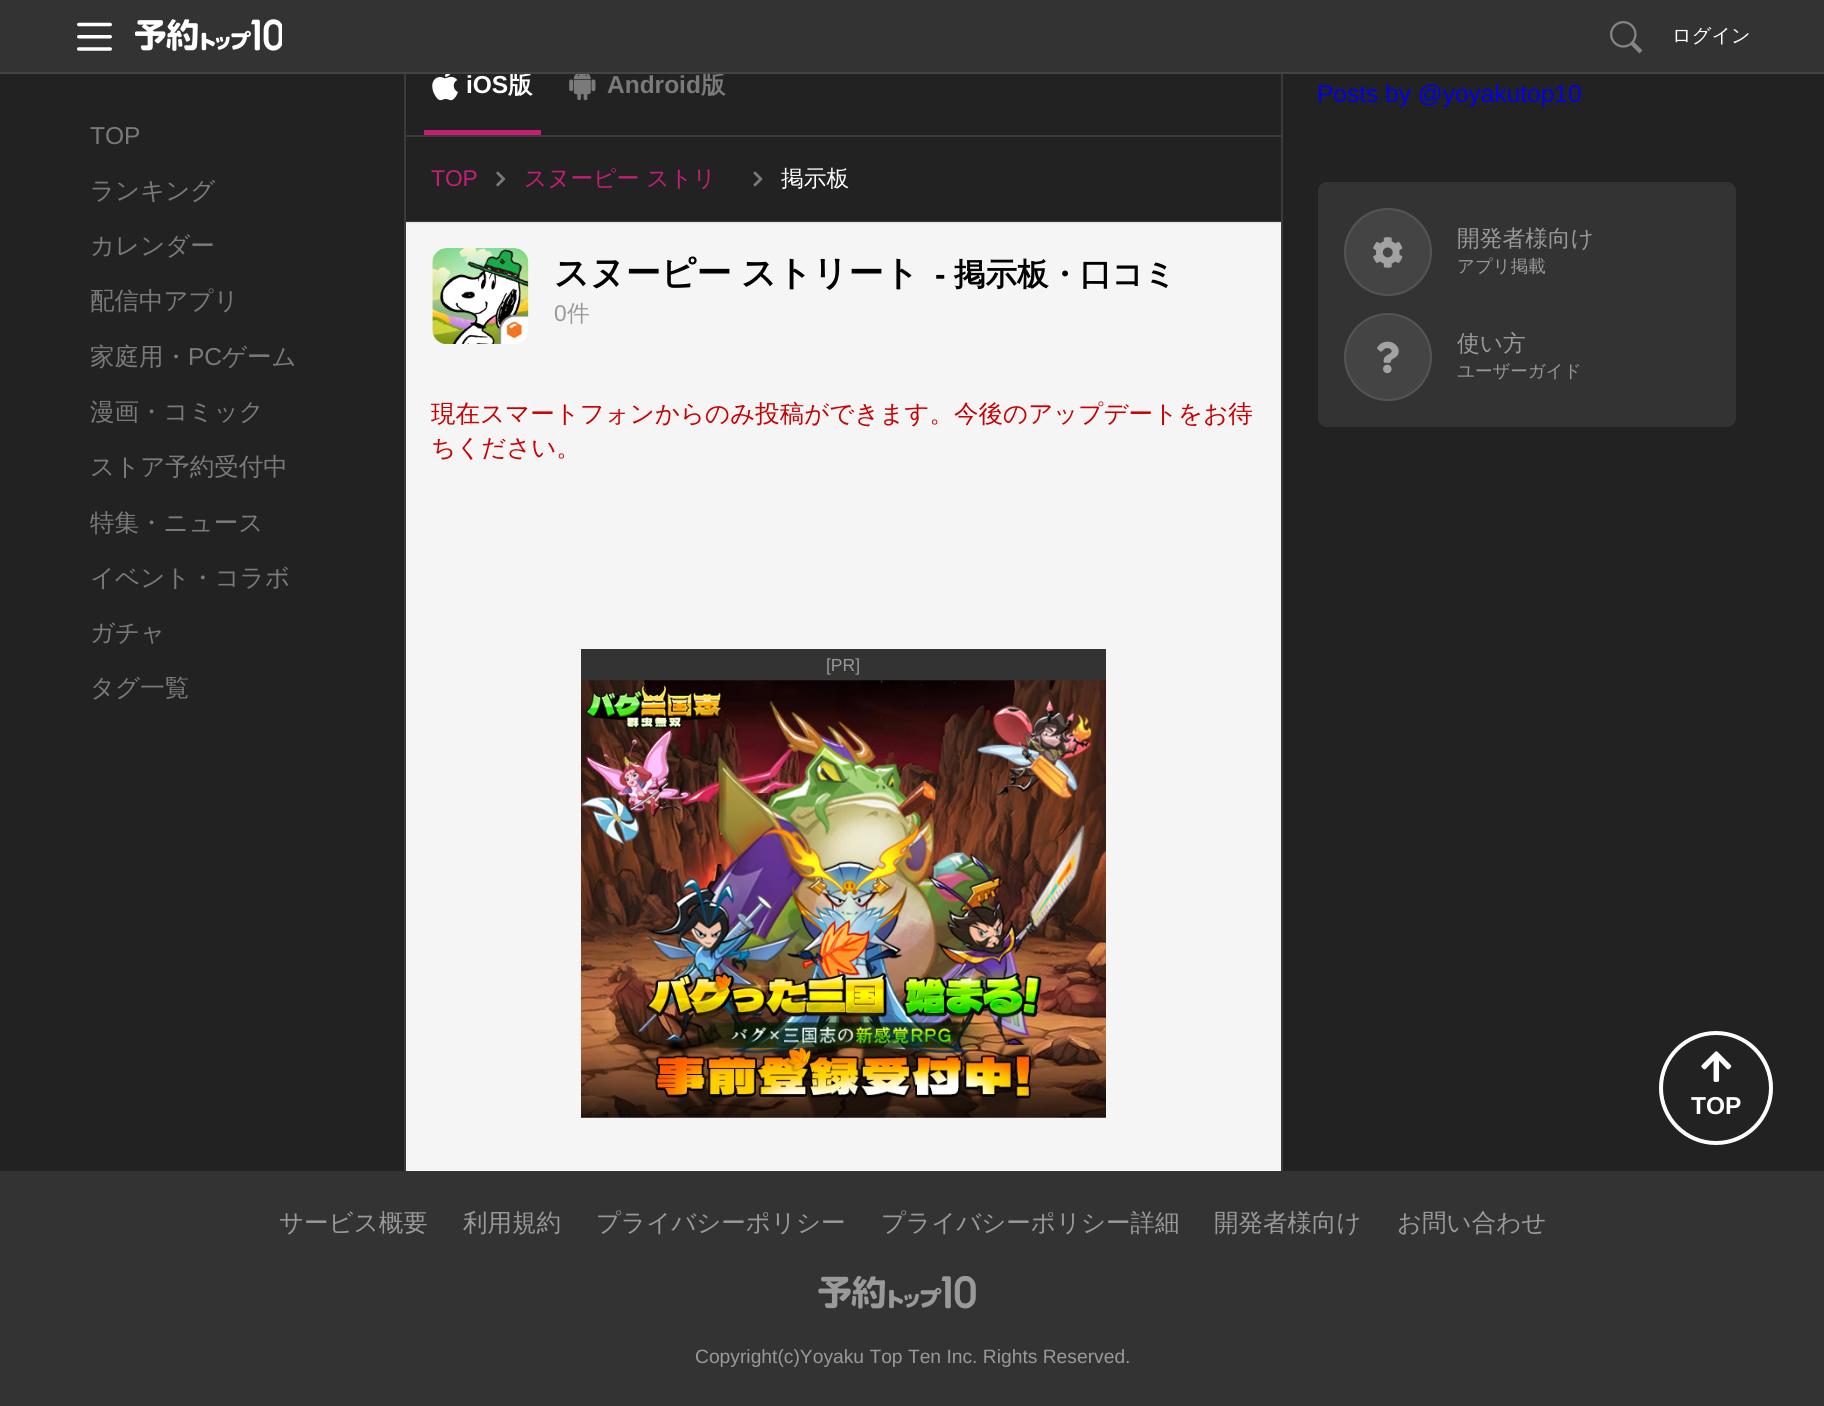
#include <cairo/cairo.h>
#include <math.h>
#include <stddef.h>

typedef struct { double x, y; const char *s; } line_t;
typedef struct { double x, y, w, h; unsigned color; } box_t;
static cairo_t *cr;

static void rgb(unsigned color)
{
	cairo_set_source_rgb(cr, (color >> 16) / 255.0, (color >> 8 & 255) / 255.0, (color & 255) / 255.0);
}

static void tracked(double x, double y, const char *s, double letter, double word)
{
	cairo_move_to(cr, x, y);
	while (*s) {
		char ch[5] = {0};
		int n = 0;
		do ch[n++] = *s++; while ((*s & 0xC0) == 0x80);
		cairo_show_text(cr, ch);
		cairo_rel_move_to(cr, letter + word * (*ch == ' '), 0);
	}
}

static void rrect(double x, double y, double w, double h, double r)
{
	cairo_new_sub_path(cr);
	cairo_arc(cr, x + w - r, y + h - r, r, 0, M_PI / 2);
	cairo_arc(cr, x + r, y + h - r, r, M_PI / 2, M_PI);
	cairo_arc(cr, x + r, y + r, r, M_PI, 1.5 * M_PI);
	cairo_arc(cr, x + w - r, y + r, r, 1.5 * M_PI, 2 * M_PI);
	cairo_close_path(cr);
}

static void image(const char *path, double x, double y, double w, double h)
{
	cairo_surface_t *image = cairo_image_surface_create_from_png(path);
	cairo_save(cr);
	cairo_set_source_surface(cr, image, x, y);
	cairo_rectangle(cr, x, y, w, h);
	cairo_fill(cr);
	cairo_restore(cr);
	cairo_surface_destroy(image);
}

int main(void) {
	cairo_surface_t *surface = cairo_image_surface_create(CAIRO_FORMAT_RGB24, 1824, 1406);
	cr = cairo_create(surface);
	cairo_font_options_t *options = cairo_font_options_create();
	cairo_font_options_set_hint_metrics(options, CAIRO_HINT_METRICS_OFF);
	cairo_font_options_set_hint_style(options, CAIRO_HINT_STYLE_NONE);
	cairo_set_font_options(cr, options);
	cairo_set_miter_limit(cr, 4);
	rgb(0x222222);
	cairo_paint(cr);
	rgb(0x333333);
	cairo_rectangle(cr, 0, 0, 1824, 72);
	cairo_fill(cr);
	image("img/1.png", 77, 22, 35, 29);
	image("img/2.png", 135, 19, 147, 32);
	image("img/3.png", 1610, 21, 33, 33);
	{
		static const box_t items[] = {
			{404, 74, 2, 1097, 0x3a3a3a},
			{406, 223, 875, 948, 0xf5f5f5},
			{406, 222, 875, 1, 0xe3e3e3},
			{424, 130, 117, 5, 0xc51e74},
		};
		for (size_t i = 0; i < sizeof items / sizeof *items; i++) {
			rgb(items[i].color);
			cairo_rectangle(cr, items[i].x, items[i].y, items[i].w, items[i].h);
			cairo_fill(cr);
		}
	}
	image("img/4.png", 432, 74, 26, 27);
	image("img/5.png", 569, 74, 27, 27);
	rgb(0x3a3a3a);
	cairo_rectangle(cr, 406, 221, 875, 1);
	cairo_fill(cr);
	cairo_rectangle(cr, 406, 135, 875, 2);
	cairo_fill(cr);
	image("img/6.png", 496, 171, 10, 16);
	image("img/7.png", 753, 171, 10, 16);
	image("img/8.png", 432, 248, 97, 96);
	rgb(0x333333);
	cairo_rectangle(cr, 581, 649, 525, 32);
	cairo_fill(cr);
	image("img/9.png", 581, 680, 525, 438);
	rgb(0x3a3a3a);
	cairo_rectangle(cr, 1281, 74, 2, 1097);
	cairo_fill(cr);
	rgb(0x333333);
	rrect(1318, 182, 418, 245, 9);
	cairo_fill(cr);
	rgb(0x444444);
	cairo_arc(cr, 1388, 252, 44, 0, 2 * M_PI);
	cairo_fill(cr);
	cairo_arc(cr, 1388, 252, 43, 0, 2 * M_PI);
	cairo_set_source_rgba(cr, 0.6, 0.6, 0.6, 0.2);
	cairo_stroke(cr);
	image("img/10.png", 1373, 237, 30, 31);
	rgb(0x444444);
	cairo_arc(cr, 1388, 357, 44, 0, 2 * M_PI);
	cairo_fill(cr);
	cairo_arc(cr, 1388, 357, 43, 0, 2 * M_PI);
	cairo_set_source_rgba(cr, 0.6, 0.6, 0.6, 0.2);
	cairo_stroke(cr);
	image("img/11.png", 1377, 341, 22, 33);
	rgb(0x333333);
	cairo_rectangle(cr, 0, 1171, 1824, 235);
	cairo_fill(cr);
	cairo_arc(cr, 1716, 1088, 55, 0, 2 * M_PI);
	rgb(0xffffff);
	cairo_set_line_width(cr, 4);
	cairo_stroke(cr);
	image("img/12.png", 1701, 1051, 31, 31);
	image("img/13.png", 818, 1276, 158, 33);
	cairo_select_font_face(cr, "WenQuanYi Zen Hei Medium", CAIRO_FONT_SLANT_NORMAL, CAIRO_FONT_WEIGHT_NORMAL);
	cairo_set_font_size(cr, 19.25);
	cairo_move_to(cr, 1672, 42);
	cairo_show_text(cr, "ログイン");
	cairo_select_font_face(cr, "Liberation Sans", CAIRO_FONT_SLANT_NORMAL, CAIRO_FONT_WEIGHT_NORMAL);
	cairo_set_font_size(cr, 24.5);
	rgb(0x7a7a7a);
	cairo_move_to(cr, 90, 144);
	cairo_show_text(cr, "TOP");
	cairo_select_font_face(cr, "WenQuanYi Zen Hei Medium", CAIRO_FONT_SLANT_NORMAL, CAIRO_FONT_WEIGHT_NORMAL);
	{
		static const line_t items[] = {
			{90, 199, "ランキング"},
			{90, 254, "カレンダー"},
			{90, 309, "配信中アプリ"},
			{90, 365, "家庭用・"},
		};
		for (size_t i = 0; i < sizeof items / sizeof *items; i++) {
			cairo_move_to(cr, items[i].x, items[i].y);
			cairo_show_text(cr, items[i].s);
		}
	}
	cairo_select_font_face(cr, "Liberation Sans", CAIRO_FONT_SLANT_NORMAL, CAIRO_FONT_WEIGHT_NORMAL);
	cairo_move_to(cr, 188, 365);
	cairo_show_text(cr, "PC");
	cairo_select_font_face(cr, "WenQuanYi Zen Hei Medium", CAIRO_FONT_SLANT_NORMAL, CAIRO_FONT_WEIGHT_NORMAL);
	{
		static const line_t items[] = {
			{222, 365, "ゲーム"},
			{90, 420, "漫画・コミック"},
			{90, 475, "ストア予約受付中"},
			{90, 531, "特集・ニュース"},
			{90, 586, "イベント・コラボ"},
			{90, 641, "ガチャ"},
			{90, 696, "タグ一覧"},
		};
		for (size_t i = 0; i < sizeof items / sizeof *items; i++) {
			cairo_move_to(cr, items[i].x, items[i].y);
			cairo_show_text(cr, items[i].s);
		}
	}
	cairo_select_font_face(cr, "Liberation Sans", CAIRO_FONT_SLANT_NORMAL, CAIRO_FONT_WEIGHT_BOLD);
	rgb(0xffffff);
	cairo_move_to(cr, 466, 93);
	cairo_show_text(cr, "iOS");
	cairo_select_font_face(cr, "WenQuanYi Zen Hei", CAIRO_FONT_SLANT_NORMAL, CAIRO_FONT_WEIGHT_BOLD);
	cairo_move_to(cr, 508, 93);
	cairo_show_text(cr, "版");
	cairo_select_font_face(cr, "Liberation Sans", CAIRO_FONT_SLANT_NORMAL, CAIRO_FONT_WEIGHT_BOLD);
	rgb(0x7a7a7a);
	cairo_move_to(cr, 607, 93);
	cairo_show_text(cr, "Android");
	cairo_select_font_face(cr, "WenQuanYi Zen Hei", CAIRO_FONT_SLANT_NORMAL, CAIRO_FONT_WEIGHT_BOLD);
	cairo_move_to(cr, 701, 93);
	cairo_show_text(cr, "版");
	rgb(0x444444);
	cairo_rectangle(cr, 0, 72, 1824, 2);
	cairo_fill(cr);
	cairo_select_font_face(cr, "Liberation Sans", CAIRO_FONT_SLANT_NORMAL, CAIRO_FONT_WEIGHT_NORMAL);
	cairo_set_font_size(cr, 22.75);
	rgb(0xc51e74);
	cairo_move_to(cr, 431, 186);
	cairo_show_text(cr, "TOP");
	cairo_select_font_face(cr, "WenQuanYi Zen Hei Medium", CAIRO_FONT_SLANT_NORMAL, CAIRO_FONT_WEIGHT_NORMAL);
	cairo_move_to(cr, 524, 186);
	cairo_show_text(cr, "スヌーピー ストリ");
	rgb(0xffffff);
	cairo_move_to(cr, 781, 186);
	cairo_show_text(cr, "掲示板");
	cairo_select_font_face(cr, "WenQuanYi Zen Hei", CAIRO_FONT_SLANT_NORMAL, CAIRO_FONT_WEIGHT_BOLD);
	cairo_set_font_size(cr, 35);
	rgb(0x000000);
	tracked(554, 285, "スヌーピー ストリート", 0, -1);
	cairo_select_font_face(cr, "Liberation Sans", CAIRO_FONT_SLANT_NORMAL, CAIRO_FONT_WEIGHT_BOLD);
	cairo_set_font_size(cr, 31.5);
	cairo_move_to(cr, 935, 285);
	cairo_show_text(cr, "-");
	cairo_select_font_face(cr, "WenQuanYi Zen Hei", CAIRO_FONT_SLANT_NORMAL, CAIRO_FONT_WEIGHT_BOLD);
	cairo_move_to(cr, 954, 285);
	cairo_show_text(cr, "掲示板・口コミ");
	cairo_select_font_face(cr, "Liberation Sans", CAIRO_FONT_SLANT_NORMAL, CAIRO_FONT_WEIGHT_NORMAL);
	cairo_set_font_size(cr, 22.75);
	rgb(0x999999);
	cairo_move_to(cr, 554, 321);
	cairo_show_text(cr, "0");
	cairo_select_font_face(cr, "WenQuanYi Zen Hei Medium", CAIRO_FONT_SLANT_NORMAL, CAIRO_FONT_WEIGHT_NORMAL);
	cairo_move_to(cr, 567, 321);
	cairo_show_text(cr, "件");
	cairo_set_font_size(cr, 24.5);
	rgb(0xc90000);
	cairo_move_to(cr, 431, 422);
	cairo_show_text(cr, "現在スマートフォンからのみ投稿ができます。今後のアップデートをお待");
	cairo_move_to(cr, 431, 456);
	cairo_show_text(cr, "ちください。");
	cairo_select_font_face(cr, "Liberation Sans", CAIRO_FONT_SLANT_NORMAL, CAIRO_FONT_WEIGHT_NORMAL);
	cairo_set_font_size(cr, 17.5);
	rgb(0x999999);
	cairo_move_to(cr, 826, 671);
	cairo_show_text(cr, "[PR]");
	cairo_set_font_size(cr, 24.5);
	rgb(0x0000ee);
	cairo_move_to(cr, 1317, 102);
	cairo_show_text(cr, "Posts by @yoyakutop10");
	cairo_select_font_face(cr, "WenQuanYi Zen Hei Medium", CAIRO_FONT_SLANT_NORMAL, CAIRO_FONT_WEIGHT_NORMAL);
	cairo_set_font_size(cr, 22.75);
	rgb(0x999999);
	cairo_move_to(cr, 1457, 246);
	cairo_show_text(cr, "開発者様向け");
	cairo_set_font_size(cr, 17.5);
	cairo_move_to(cr, 1457, 272);
	cairo_show_text(cr, "アプリ掲載");
	cairo_set_font_size(cr, 22.75);
	cairo_move_to(cr, 1457, 351);
	cairo_show_text(cr, "使い方");
	cairo_set_font_size(cr, 17.5);
	cairo_move_to(cr, 1457, 377);
	cairo_show_text(cr, "ユーザーガイド");
	cairo_select_font_face(cr, "Liberation Sans", CAIRO_FONT_SLANT_NORMAL, CAIRO_FONT_WEIGHT_BOLD);
	cairo_set_font_size(cr, 24.5);
	rgb(0xffffff);
	cairo_move_to(cr, 1691, 1114);
	cairo_show_text(cr, "TOP");
	cairo_select_font_face(cr, "WenQuanYi Zen Hei Medium", CAIRO_FONT_SLANT_NORMAL, CAIRO_FONT_WEIGHT_NORMAL);
	rgb(0x999999);
	{
		static const line_t items[] = {
			{279, 1231, "サービス概要"},
			{463, 1231, "利用規約"},
			{596, 1231, "プライバシーポリシー"},
			{881, 1231, "プライバシーポリシー詳細"},
			{1214, 1231, "開発者様向け"},
			{1397, 1231, "お問い合わせ"},
		};
		for (size_t i = 0; i < sizeof items / sizeof *items; i++) {
			cairo_move_to(cr, items[i].x, items[i].y);
			cairo_show_text(cr, items[i].s);
		}
	}
	cairo_select_font_face(cr, "Liberation Sans", CAIRO_FONT_SLANT_NORMAL, CAIRO_FONT_WEIGHT_NORMAL);
	cairo_set_font_size(cr, 19.25);
	cairo_move_to(cr, 695, 1363);
	cairo_show_text(cr, "Copyright(c)Yoyaku Top Ten Inc. Rights Reserved.");
	cairo_surface_write_to_png(surface, "page.png");
	cairo_font_options_destroy(options);
	cairo_destroy(cr);
	cairo_surface_destroy(surface);
	return 0;
}
